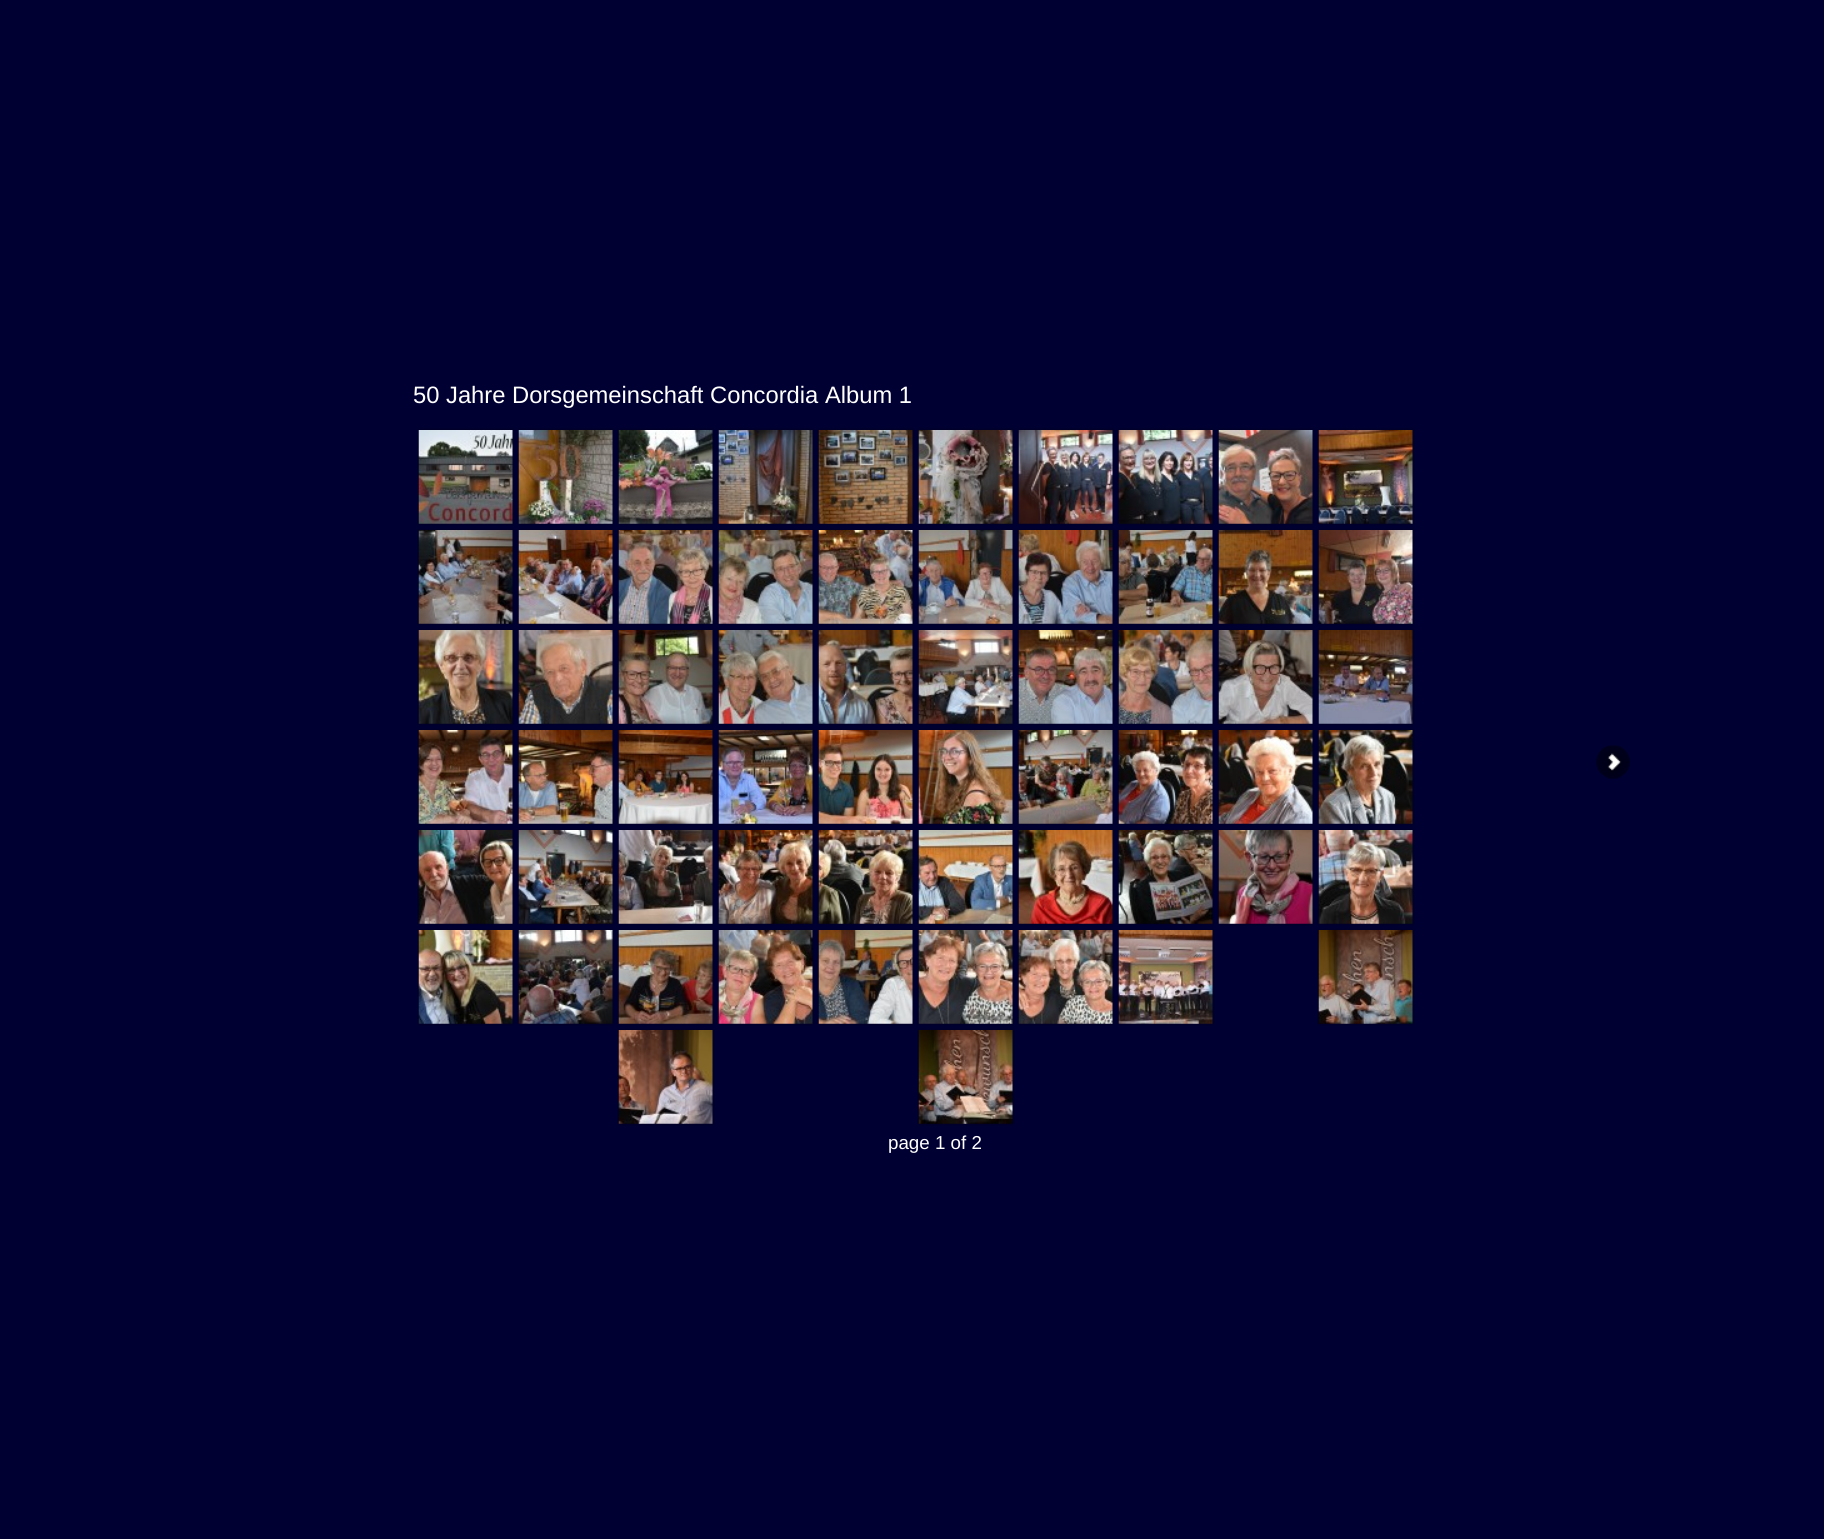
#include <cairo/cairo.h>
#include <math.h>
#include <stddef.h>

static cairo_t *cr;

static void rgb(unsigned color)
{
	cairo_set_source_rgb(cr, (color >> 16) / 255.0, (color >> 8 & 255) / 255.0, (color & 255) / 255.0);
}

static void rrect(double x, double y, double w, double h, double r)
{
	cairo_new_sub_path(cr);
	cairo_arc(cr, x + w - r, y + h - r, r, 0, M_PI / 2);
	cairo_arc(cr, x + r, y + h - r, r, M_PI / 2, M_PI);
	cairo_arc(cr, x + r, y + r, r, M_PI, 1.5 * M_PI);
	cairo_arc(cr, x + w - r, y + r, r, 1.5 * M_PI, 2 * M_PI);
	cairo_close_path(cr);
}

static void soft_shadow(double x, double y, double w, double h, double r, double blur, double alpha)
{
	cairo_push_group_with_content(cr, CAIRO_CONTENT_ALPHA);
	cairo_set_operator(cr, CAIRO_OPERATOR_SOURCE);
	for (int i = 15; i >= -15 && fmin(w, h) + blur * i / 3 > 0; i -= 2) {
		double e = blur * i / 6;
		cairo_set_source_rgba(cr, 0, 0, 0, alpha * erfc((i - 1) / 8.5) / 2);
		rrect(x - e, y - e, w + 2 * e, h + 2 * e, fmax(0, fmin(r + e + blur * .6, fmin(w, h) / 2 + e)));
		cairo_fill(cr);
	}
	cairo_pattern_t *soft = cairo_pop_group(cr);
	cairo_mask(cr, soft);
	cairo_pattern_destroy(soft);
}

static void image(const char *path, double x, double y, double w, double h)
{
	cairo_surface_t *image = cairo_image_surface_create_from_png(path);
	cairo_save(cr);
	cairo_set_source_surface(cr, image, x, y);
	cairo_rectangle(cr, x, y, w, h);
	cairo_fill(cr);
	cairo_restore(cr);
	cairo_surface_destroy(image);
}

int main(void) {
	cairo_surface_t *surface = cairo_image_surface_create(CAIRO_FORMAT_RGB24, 1824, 1539);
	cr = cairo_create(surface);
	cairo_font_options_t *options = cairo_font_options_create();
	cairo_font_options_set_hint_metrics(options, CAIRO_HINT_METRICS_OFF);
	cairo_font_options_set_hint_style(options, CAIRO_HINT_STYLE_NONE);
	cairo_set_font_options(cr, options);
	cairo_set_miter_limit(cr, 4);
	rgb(0x000033);
	cairo_paint(cr);
	rgb(0x000000);
	soft_shadow(419, 430, 94, 94, 0, 2, 0.4);
	soft_shadow(519, 430, 94, 94, 0, 2, 0.4);
	soft_shadow(419, 530, 94, 94, 0, 2, 0.4);
	soft_shadow(519, 530, 94, 94, 0, 2, 0.4);
	image("img/1.png", 418, 430, 95, 94);
	soft_shadow(619, 430, 94, 94, 0, 2, 0.4);
	soft_shadow(619, 530, 94, 94, 0, 2, 0.4);
	image("img/2.png", 518, 430, 95, 94);
	soft_shadow(719, 430, 94, 94, 0, 2, 0.4);
	soft_shadow(719, 530, 94, 94, 0, 2, 0.4);
	image("img/3.png", 618, 430, 95, 94);
	soft_shadow(819, 430, 94, 94, 0, 2, 0.4);
	soft_shadow(819, 530, 94, 94, 0, 2, 0.4);
	image("img/4.png", 718, 430, 95, 94);
	soft_shadow(919, 430, 94, 94, 0, 2, 0.4);
	soft_shadow(919, 530, 94, 94, 0, 2, 0.4);
	image("img/5.png", 818, 430, 95, 94);
	soft_shadow(1019, 430, 94, 94, 0, 2, 0.4);
	soft_shadow(1019, 530, 94, 94, 0, 2, 0.4);
	image("img/6.png", 918, 430, 95, 94);
	soft_shadow(1119, 430, 94, 94, 0, 2, 0.4);
	soft_shadow(1119, 530, 94, 94, 0, 2, 0.4);
	image("img/7.png", 1018, 430, 95, 94);
	soft_shadow(1219, 430, 94, 94, 0, 2, 0.4);
	soft_shadow(1219, 530, 94, 94, 0, 2, 0.4);
	image("img/8.png", 1118, 430, 95, 94);
	soft_shadow(1319, 430, 94, 94, 0, 2, 0.4);
	soft_shadow(1319, 530, 94, 94, 0, 2, 0.4);
	image("img/9.png", 1218, 430, 95, 94);
	image("img/10.png", 1318, 430, 95, 94);
	soft_shadow(419, 630, 94, 94, 0, 2, 0.4);
	soft_shadow(519, 630, 94, 94, 0, 2, 0.4);
	image("img/11.png", 418, 530, 95, 94);
	soft_shadow(619, 630, 94, 94, 0, 2, 0.4);
	image("img/12.png", 518, 530, 95, 94);
	soft_shadow(719, 630, 94, 94, 0, 2, 0.4);
	image("img/13.png", 618, 530, 95, 94);
	soft_shadow(819, 630, 94, 94, 0, 2, 0.4);
	image("img/14.png", 718, 530, 95, 94);
	soft_shadow(919, 630, 94, 94, 0, 2, 0.4);
	image("img/15.png", 818, 530, 95, 94);
	soft_shadow(1019, 630, 94, 94, 0, 2, 0.4);
	image("img/16.png", 918, 530, 95, 94);
	soft_shadow(1119, 630, 94, 94, 0, 2, 0.4);
	image("img/17.png", 1018, 530, 95, 94);
	soft_shadow(1219, 630, 94, 94, 0, 2, 0.4);
	image("img/18.png", 1118, 530, 95, 94);
	soft_shadow(1319, 630, 94, 94, 0, 2, 0.4);
	image("img/19.png", 1218, 530, 95, 94);
	image("img/20.png", 1318, 530, 95, 94);
	soft_shadow(419, 730, 94, 94, 0, 2, 0.4);
	soft_shadow(519, 730, 94, 94, 0, 2, 0.4);
	image("img/21.png", 418, 630, 95, 94);
	soft_shadow(619, 730, 94, 94, 0, 2, 0.4);
	image("img/22.png", 518, 630, 95, 94);
	soft_shadow(719, 730, 94, 94, 0, 2, 0.4);
	image("img/23.png", 618, 630, 95, 94);
	soft_shadow(819, 730, 94, 94, 0, 2, 0.4);
	image("img/24.png", 718, 630, 95, 94);
	soft_shadow(919, 730, 94, 94, 0, 2, 0.4);
	image("img/25.png", 818, 630, 95, 94);
	soft_shadow(1019, 730, 94, 94, 0, 2, 0.4);
	image("img/26.png", 918, 630, 95, 94);
	soft_shadow(1119, 730, 94, 94, 0, 2, 0.4);
	image("img/27.png", 1018, 630, 95, 94);
	soft_shadow(1219, 730, 94, 94, 0, 2, 0.4);
	image("img/28.png", 1118, 630, 95, 94);
	soft_shadow(1319, 730, 94, 94, 0, 2, 0.4);
	image("img/29.png", 1218, 630, 95, 94);
	image("img/30.png", 1318, 630, 95, 94);
	soft_shadow(419, 830, 94, 94, 0, 2, 0.4);
	soft_shadow(519, 830, 94, 94, 0, 2, 0.4);
	image("img/31.png", 418, 730, 95, 94);
	soft_shadow(619, 830, 94, 94, 0, 2, 0.4);
	image("img/32.png", 518, 730, 95, 94);
	soft_shadow(719, 830, 94, 94, 0, 2, 0.4);
	image("img/33.png", 618, 730, 95, 94);
	soft_shadow(819, 830, 94, 94, 0, 2, 0.4);
	image("img/34.png", 718, 730, 95, 94);
	soft_shadow(919, 830, 94, 94, 0, 2, 0.4);
	image("img/35.png", 818, 730, 95, 94);
	soft_shadow(1019, 830, 94, 94, 0, 2, 0.4);
	image("img/36.png", 918, 730, 95, 94);
	soft_shadow(1119, 830, 94, 94, 0, 2, 0.4);
	image("img/37.png", 1018, 730, 95, 94);
	soft_shadow(1219, 830, 94, 94, 0, 2, 0.4);
	image("img/38.png", 1118, 730, 95, 94);
	soft_shadow(1319, 830, 94, 94, 0, 2, 0.4);
	image("img/39.png", 1218, 730, 95, 94);
	image("img/40.png", 1318, 730, 95, 94);
	soft_shadow(419, 930, 94, 94, 0, 2, 0.4);
	soft_shadow(519, 930, 94, 94, 0, 2, 0.4);
	image("img/41.png", 418, 830, 95, 94);
	soft_shadow(619, 930, 94, 94, 0, 2, 0.4);
	image("img/42.png", 518, 830, 95, 94);
	soft_shadow(719, 930, 94, 94, 0, 2, 0.4);
	image("img/43.png", 618, 830, 95, 94);
	soft_shadow(819, 930, 94, 94, 0, 2, 0.4);
	image("img/44.png", 718, 830, 95, 94);
	soft_shadow(919, 930, 94, 94, 0, 2, 0.4);
	image("img/45.png", 818, 830, 95, 94);
	soft_shadow(1019, 930, 94, 94, 0, 2, 0.4);
	image("img/46.png", 918, 830, 95, 94);
	soft_shadow(1119, 930, 94, 94, 0, 2, 0.4);
	image("img/47.png", 1018, 830, 95, 94);
	image("img/48.png", 1118, 830, 95, 94);
	soft_shadow(1319, 930, 94, 94, 0, 2, 0.4);
	image("img/49.png", 1218, 830, 95, 94);
	image("img/50.png", 1318, 830, 95, 94);
	image("img/51.png", 418, 930, 95, 94);
	soft_shadow(619, 1030, 94, 94, 0, 2, 0.4);
	image("img/52.png", 518, 930, 95, 94);
	image("img/53.png", 618, 930, 95, 94);
	image("img/54.png", 718, 930, 95, 94);
	soft_shadow(919, 1030, 94, 94, 0, 2, 0.4);
	image("img/55.png", 818, 930, 95, 94);
	image("img/56.png", 918, 930, 95, 94);
	image("img/57.png", 1018, 930, 95, 94);
	image("img/58.png", 1118, 930, 95, 94);
	image("img/59.png", 1318, 930, 95, 94);
	image("img/60.png", 618, 1030, 95, 94);
	image("img/61.png", 918, 1030, 95, 94);
	image("img/62.png", 1596, 745, 34, 34);
	cairo_select_font_face(cr, "Liberation Sans", CAIRO_FONT_SLANT_NORMAL, CAIRO_FONT_WEIGHT_NORMAL);
	cairo_set_font_size(cr, 23.75);
	rgb(0xffffff);
	cairo_move_to(cr, 413, 403);
	cairo_show_text(cr, "50 Jahre Dorsgemeinschaft Concordia Album 1");
	cairo_set_font_size(cr, 18.75);
	cairo_move_to(cr, 888, 1149);
	cairo_show_text(cr, "page 1 of 2");
	cairo_surface_write_to_png(surface, "page.png");
	cairo_font_options_destroy(options);
	cairo_destroy(cr);
	cairo_surface_destroy(surface);
	return 0;
}
